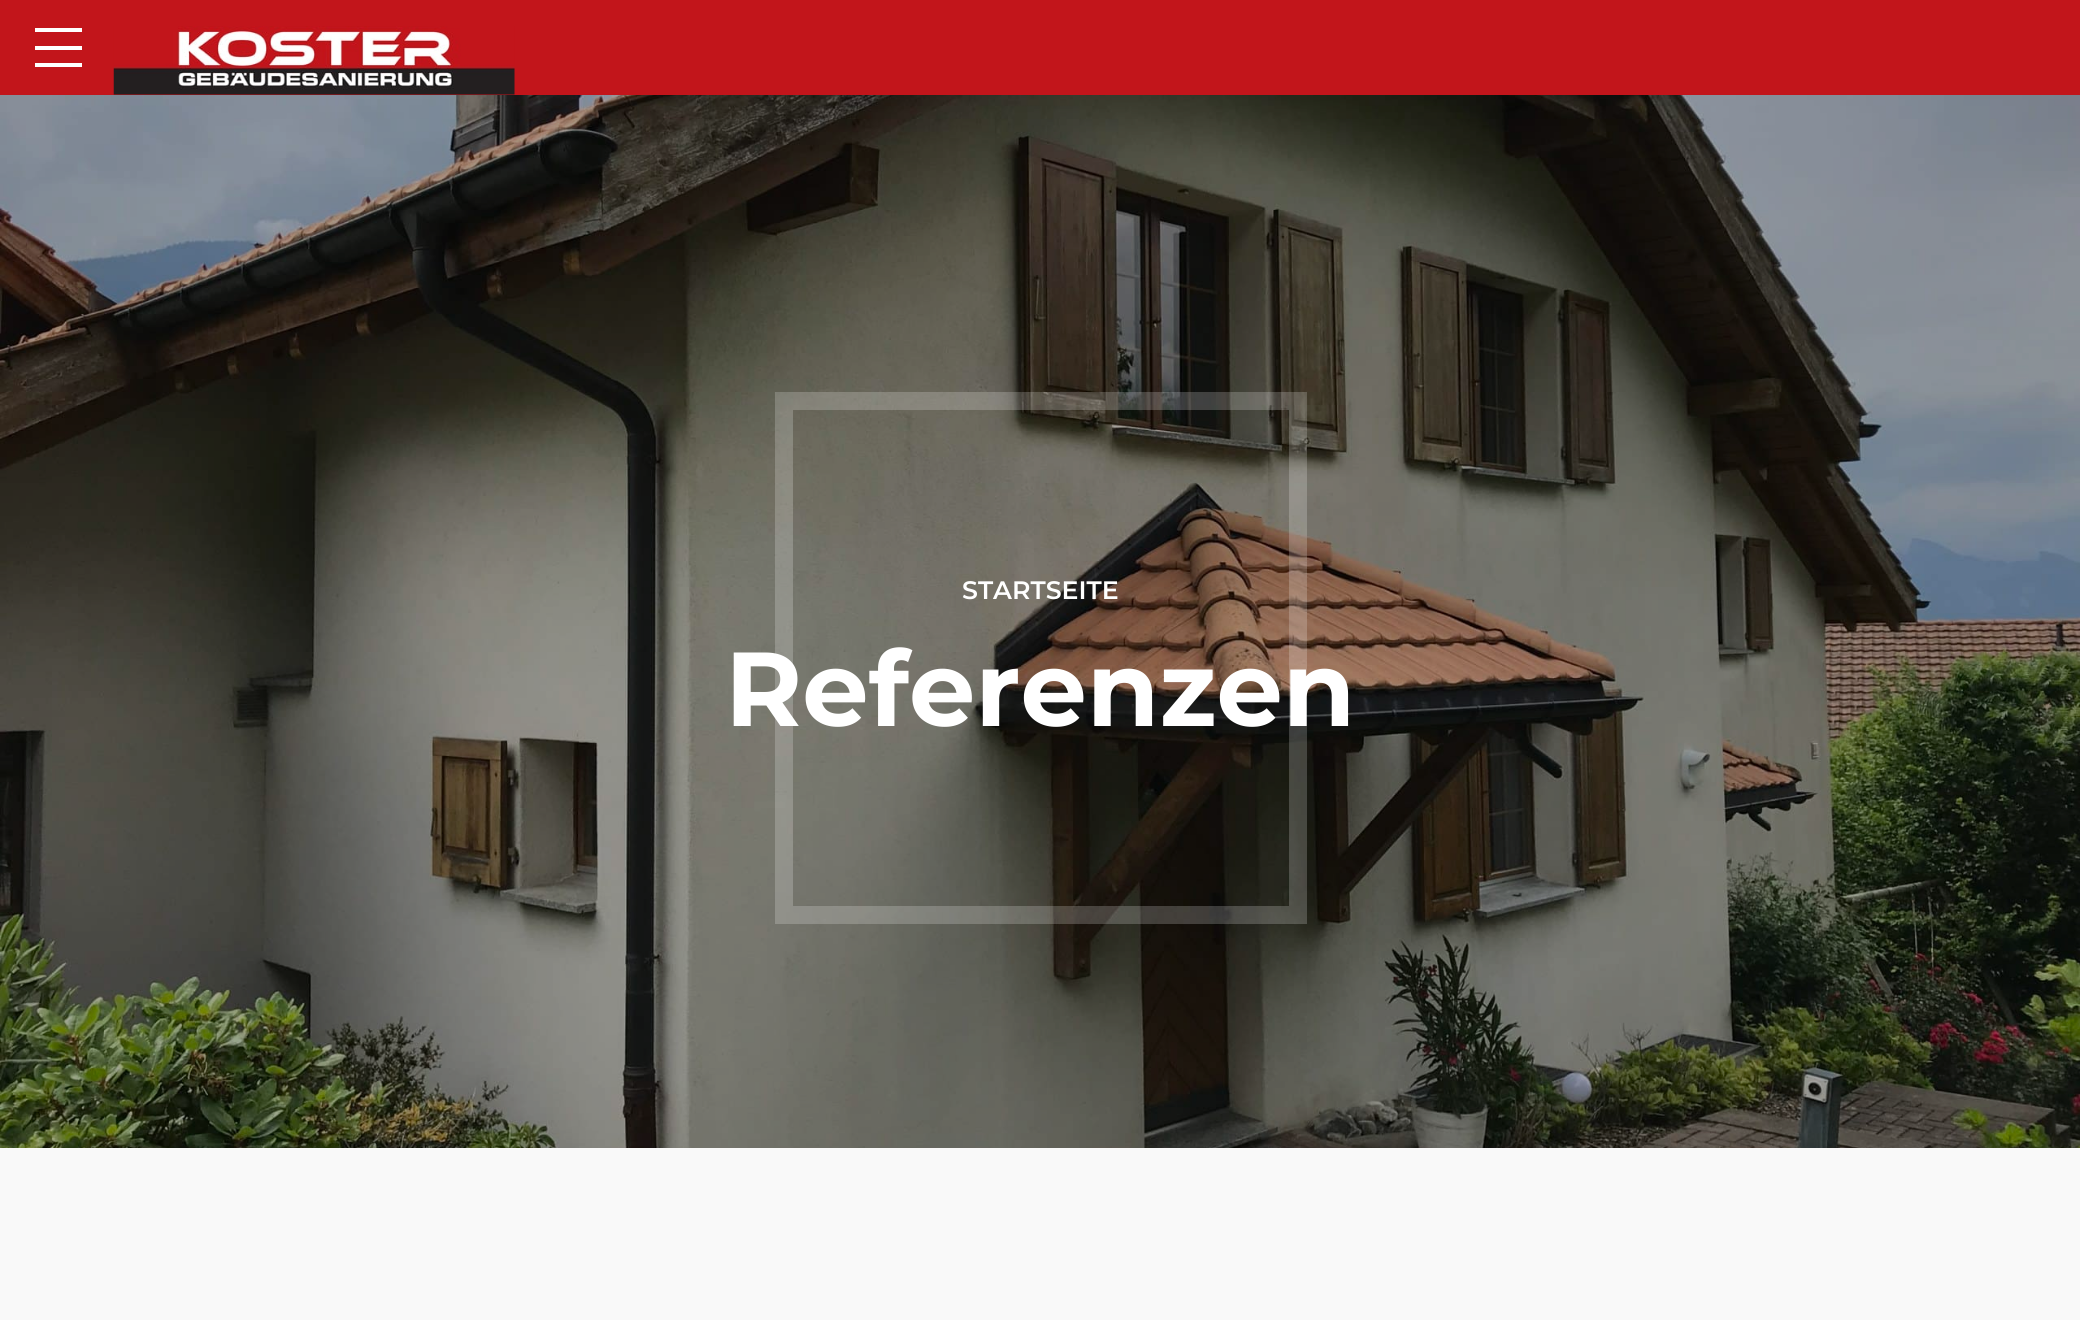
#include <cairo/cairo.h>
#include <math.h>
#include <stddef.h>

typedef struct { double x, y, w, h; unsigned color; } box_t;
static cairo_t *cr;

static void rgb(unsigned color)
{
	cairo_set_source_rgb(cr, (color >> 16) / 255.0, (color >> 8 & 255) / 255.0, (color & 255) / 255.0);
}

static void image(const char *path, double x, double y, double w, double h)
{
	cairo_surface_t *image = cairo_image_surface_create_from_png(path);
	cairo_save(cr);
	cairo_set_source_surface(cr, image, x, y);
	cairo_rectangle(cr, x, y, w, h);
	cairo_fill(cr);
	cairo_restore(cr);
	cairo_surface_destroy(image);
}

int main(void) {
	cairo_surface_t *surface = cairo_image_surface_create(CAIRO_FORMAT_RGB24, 2080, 1320);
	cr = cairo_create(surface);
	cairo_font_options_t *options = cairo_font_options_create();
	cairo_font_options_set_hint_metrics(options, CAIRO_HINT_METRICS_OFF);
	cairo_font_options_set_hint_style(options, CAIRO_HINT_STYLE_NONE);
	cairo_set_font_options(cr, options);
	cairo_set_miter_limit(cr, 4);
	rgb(0xffffff);
	cairo_paint(cr);
	{
		static const box_t items[] = {
			{0, 0, 2080, 95, 0xc2151b},
			{35, 28, 47, 4, 0xffffff},
			{35, 46, 47, 4, 0xffffff},
			{35, 63, 47, 4, 0xffffff},
		};
		for (size_t i = 0; i < sizeof items / sizeof *items; i++) {
			rgb(items[i].color);
			cairo_rectangle(cr, items[i].x, items[i].y, items[i].w, items[i].h);
			cairo_fill(cr);
		}
	}
	image("img/1.png", 113, 26, 402, 69);
	image("img/2.png", 0, 95, 2080, 1053);
	cairo_rectangle(cr, 784, 401, 514, 514);
	cairo_set_source_rgba(cr, 1, 1, 1, 0.2);
	cairo_set_line_width(cr, 18);
	cairo_stroke(cr);
	rgb(0xf9f9f9);
	cairo_rectangle(cr, 0, 1148, 2080, 172);
	cairo_fill(cr);
	cairo_select_font_face(cr, "Montserrat SemiBold", CAIRO_FONT_SLANT_NORMAL, CAIRO_FONT_WEIGHT_NORMAL);
	cairo_set_font_size(cr, 25.25);
	rgb(0xffffff);
	cairo_move_to(cr, 962, 599);
	cairo_show_text(cr, "STARTSEITE");
	cairo_select_font_face(cr, "Montserrat", CAIRO_FONT_SLANT_NORMAL, CAIRO_FONT_WEIGHT_BOLD);
	cairo_set_font_size(cr, 105);
	cairo_move_to(cr, 725, 726);
	cairo_show_text(cr, "Referenzen");
	cairo_surface_write_to_png(surface, "page.png");
	cairo_font_options_destroy(options);
	cairo_destroy(cr);
	cairo_surface_destroy(surface);
	return 0;
}
